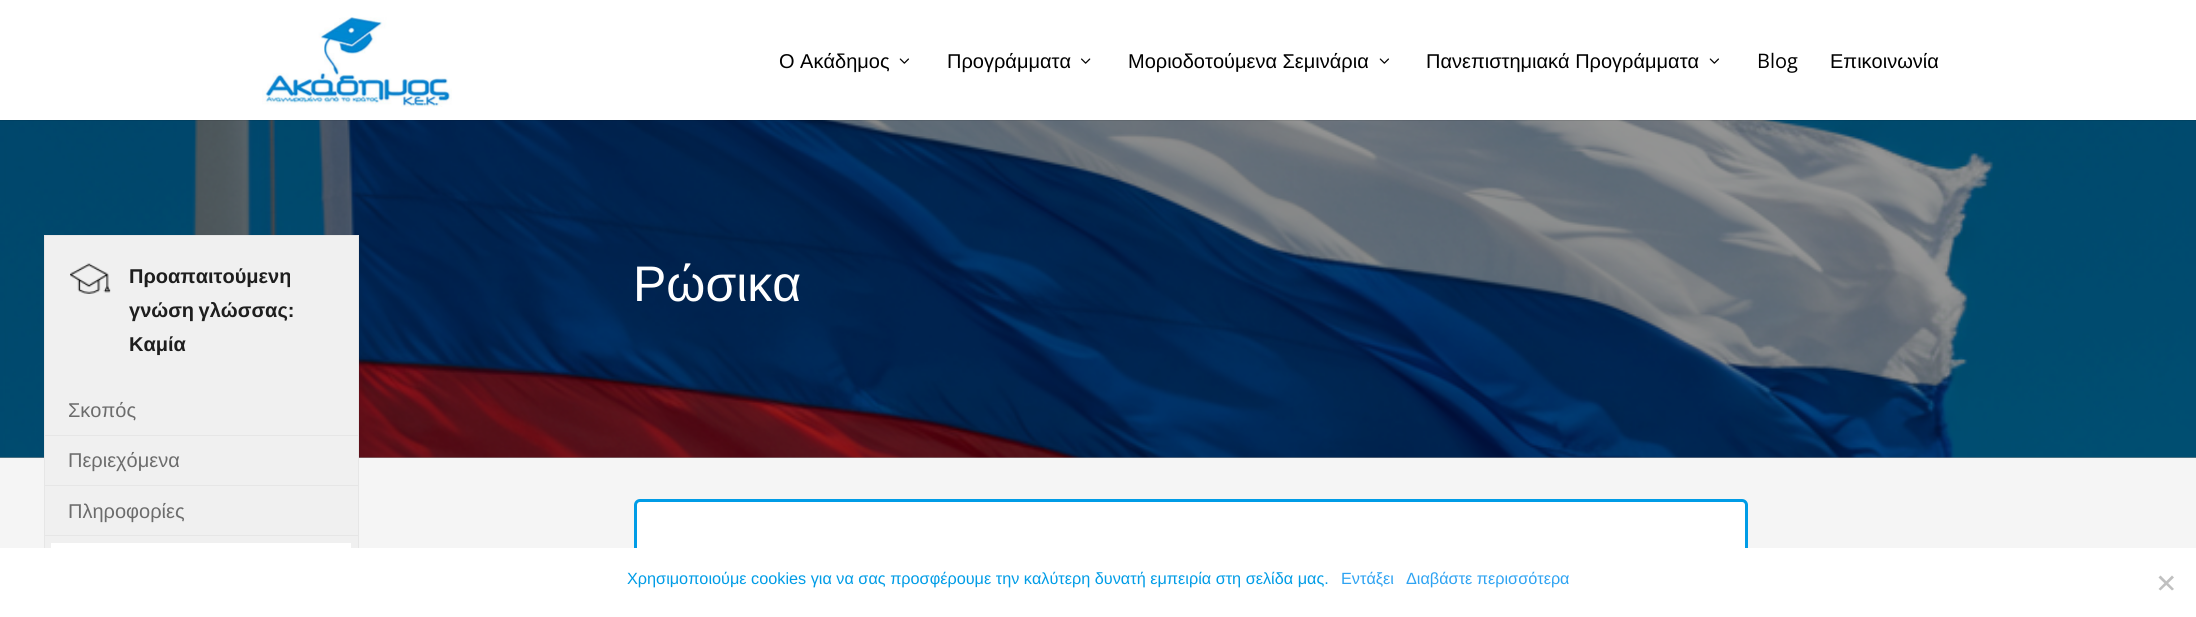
#include <cairo/cairo.h>
#include <math.h>
#include <stddef.h>

typedef struct { double x, y; const char *s; } line_t;
typedef struct { double x, y, w, h; unsigned color; } box_t;
static cairo_t *cr;

static void rgb(unsigned color)
{
	cairo_set_source_rgb(cr, (color >> 16) / 255.0, (color >> 8 & 255) / 255.0, (color & 255) / 255.0);
}

static void tracked(double x, double y, const char *s, double letter, double word)
{
	cairo_move_to(cr, x, y);
	while (*s) {
		char ch[5] = {0};
		int n = 0;
		do ch[n++] = *s++; while ((*s & 0xC0) == 0x80);
		cairo_show_text(cr, ch);
		cairo_rel_move_to(cr, letter + word * (*ch == ' '), 0);
	}
}

static void rrect(double x, double y, double w, double h, double r)
{
	cairo_new_sub_path(cr);
	cairo_arc(cr, x + w - r, y + h - r, r, 0, M_PI / 2);
	cairo_arc(cr, x + r, y + h - r, r, M_PI / 2, M_PI);
	cairo_arc(cr, x + r, y + r, r, M_PI, 1.5 * M_PI);
	cairo_arc(cr, x + w - r, y + r, r, 1.5 * M_PI, 2 * M_PI);
	cairo_close_path(cr);
}

static void image(const char *path, double x, double y, double w, double h)
{
	cairo_surface_t *image = cairo_image_surface_create_from_png(path);
	cairo_save(cr);
	cairo_set_source_surface(cr, image, x, y);
	cairo_rectangle(cr, x, y, w, h);
	cairo_fill(cr);
	cairo_restore(cr);
	cairo_surface_destroy(image);
}

int main(void) {
	cairo_surface_t *surface = cairo_image_surface_create(CAIRO_FORMAT_RGB24, 2196, 617);
	cr = cairo_create(surface);
	cairo_font_options_t *options = cairo_font_options_create();
	cairo_font_options_set_hint_metrics(options, CAIRO_HINT_METRICS_OFF);
	cairo_font_options_set_hint_style(options, CAIRO_HINT_STYLE_NONE);
	cairo_set_font_options(cr, options);
	cairo_set_miter_limit(cr, 4);
	rgb(0xffffff);
	cairo_paint(cr);
	rgb(0x949494);
	cairo_rectangle(cr, 0, 457, 2196, 1);
	cairo_fill(cr);
	image("img/5.png", 0, 120, 2196, 338);
	cairo_set_source_rgba(cr, 0, 0, 0, 0.1);
	cairo_rectangle(cr, 0, 120, 2196, 1);
	cairo_fill(cr);
	image("img/1.png", 262, 17, 190, 90);
	image("img/2.png", 899, 58, 10, 6);
	image("img/3.png", 1081, 58, 10, 6);
	image("img/2.png", 1379, 58, 10, 6);
	image("img/2.png", 1709, 58, 10, 6);
	rgb(0xf5f5f5);
	cairo_rectangle(cr, 0, 458, 2196, 90);
	cairo_fill(cr);
	rgb(0xf0f0f0);
	cairo_rectangle(cr, 45, 236, 313, 312);
	cairo_fill(cr);
	cairo_rectangle(cr, 44.5, 235.5, 314, 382);
	rgb(0xe6e6e6);
	cairo_set_line_width(cr, 1);
	cairo_stroke(cr);
	image("img/4.png", 70, 263, 41, 31);
	{
		static const box_t items[] = {
			{45, 435, 313, 1, 0xe6e6e6},
			{45, 485, 313, 1, 0xe6e6e6},
			{45, 535, 313, 1, 0xe6e6e6},
			{51, 543, 300, 5, 0xffffff},
		};
		for (size_t i = 0; i < sizeof items / sizeof *items; i++) {
			rgb(items[i].color);
			cairo_rectangle(cr, items[i].x, items[i].y, items[i].w, items[i].h);
			cairo_fill(cr);
		}
	}
	rrect(635.5, 500.5, 1111, 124, 4.5);
	cairo_fill_preserve(cr);
	rgb(0x009ce6);
	cairo_set_line_width(cr, 3);
	cairo_stroke(cr);
	rgb(0xffffff);
	cairo_rectangle(cr, 44, 548, 1704, 69);
	cairo_fill(cr);
	rgb(0xc0c0c0);
	cairo_new_path(cr);
	cairo_move_to(cr, 2172, 575.5);
	cairo_line_to(cr, 2174, 577.5);
	cairo_line_to(cr, 2160.5, 590.5);
	cairo_line_to(cr, 2158.5, 589);
	cairo_close_path(cr);
	cairo_fill(cr);
	cairo_new_path(cr);
	cairo_move_to(cr, 2158.5, 577.5);
	cairo_line_to(cr, 2160.5, 575.5);
	cairo_line_to(cr, 2174, 589);
	cairo_line_to(cr, 2172, 590.5);
	cairo_close_path(cr);
	cairo_fill(cr);
	cairo_select_font_face(cr, "Liberation Sans", CAIRO_FONT_SLANT_NORMAL, CAIRO_FONT_WEIGHT_NORMAL);
	cairo_set_font_size(cr, 20);
	rgb(0x000000);
	{
		static const line_t items[] = {
			{779, 68, "Ο Ακάδημος"},
			{947, 68, "Προγράμματα"},
			{1128, 68, "Μοριοδοτούμενα Σεμινάρια"},
			{1426, 68, "Πανεπιστημιακά Προγράμματα"},
		};
		for (size_t i = 0; i < sizeof items / sizeof *items; i++) {
			cairo_move_to(cr, items[i].x, items[i].y);
			cairo_show_text(cr, items[i].s);
		}
	}
	cairo_select_font_face(cr, "Open Sans", CAIRO_FONT_SLANT_NORMAL, CAIRO_FONT_WEIGHT_NORMAL);
	cairo_move_to(cr, 1757, 68);
	cairo_show_text(cr, "Blog");
	cairo_select_font_face(cr, "Liberation Sans", CAIRO_FONT_SLANT_NORMAL, CAIRO_FONT_WEIGHT_NORMAL);
	cairo_move_to(cr, 1830, 68);
	cairo_show_text(cr, "Επικοινωνία");
	cairo_select_font_face(cr, "Liberation Sans", CAIRO_FONT_SLANT_NORMAL, CAIRO_FONT_WEIGHT_BOLD);
	rgb(0x1e1e1e);
	cairo_move_to(cr, 129, 283);
	cairo_show_text(cr, "Προαπαιτούμενη");
	tracked(129, 317, "γνώση γλώσσας:", 0, -1);
	cairo_move_to(cr, 129, 351);
	cairo_show_text(cr, "Καμία");
	cairo_select_font_face(cr, "Liberation Sans", CAIRO_FONT_SLANT_NORMAL, CAIRO_FONT_WEIGHT_NORMAL);
	rgb(0x6c6c6c);
	{
		static const line_t items[] = {
			{68, 417, "Σκοπός"},
			{68, 467, "Περιεχόμενα"},
			{68, 518, "Πληροφορίες"},
		};
		for (size_t i = 0; i < sizeof items / sizeof *items; i++) {
			cairo_move_to(cr, items[i].x, items[i].y);
			cairo_show_text(cr, items[i].s);
		}
	}
	cairo_set_font_size(cr, 50);
	rgb(0xffffff);
	cairo_move_to(cr, 633, 301);
	cairo_show_text(cr, "Ρώσικα");
	cairo_set_font_size(cr, 16.25);
	rgb(0x009ce6);
	cairo_move_to(cr, 627, 584);
	cairo_show_text(cr, "Χρησιμοποιούμε cookies για να σας προσφέρουμε την καλύτερη δυνατή εμπειρία στη σελίδα μας.");
	rgb(0x2ea3f2);
	cairo_move_to(cr, 1341, 584);
	cairo_show_text(cr, "Εντάξει");
	cairo_move_to(cr, 1406, 584);
	cairo_show_text(cr, "Διαβάστε περισσότερα");
	cairo_surface_write_to_png(surface, "page.png");
	cairo_font_options_destroy(options);
	cairo_destroy(cr);
	cairo_surface_destroy(surface);
	return 0;
}
